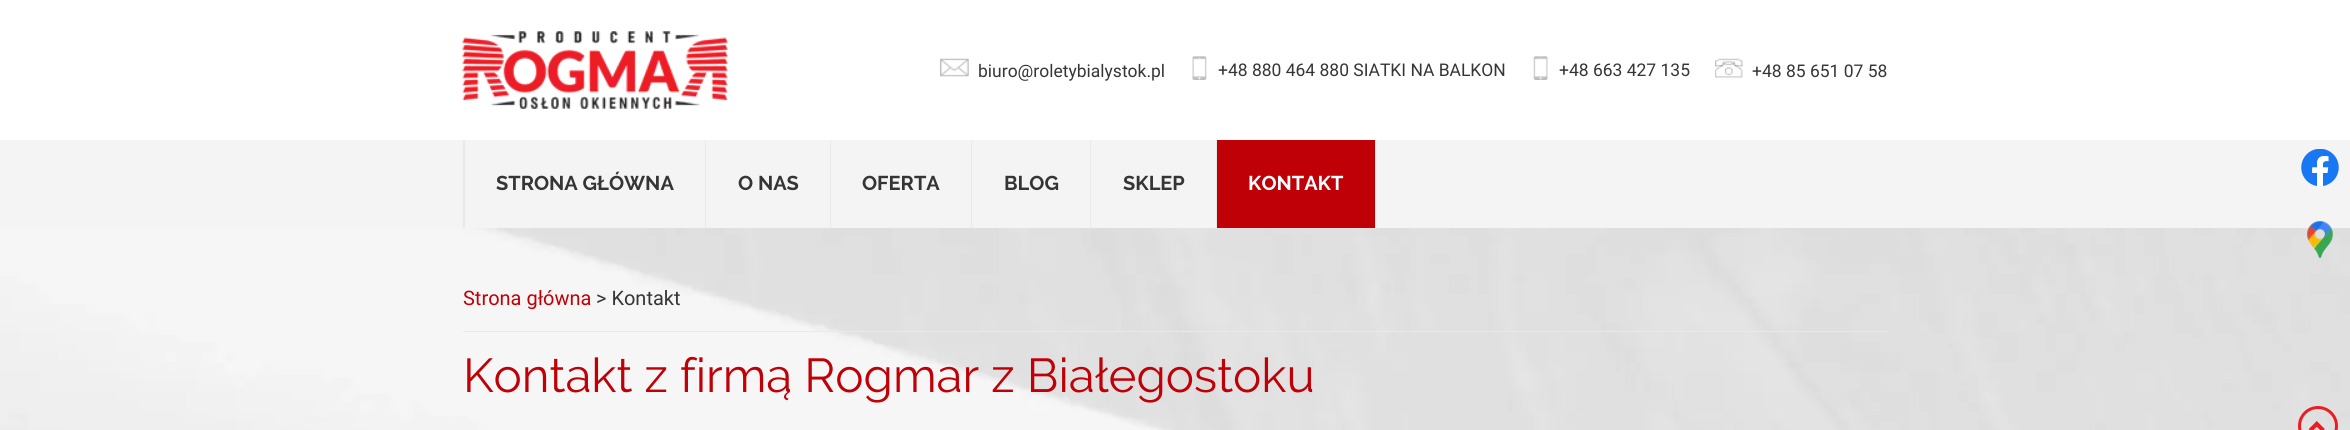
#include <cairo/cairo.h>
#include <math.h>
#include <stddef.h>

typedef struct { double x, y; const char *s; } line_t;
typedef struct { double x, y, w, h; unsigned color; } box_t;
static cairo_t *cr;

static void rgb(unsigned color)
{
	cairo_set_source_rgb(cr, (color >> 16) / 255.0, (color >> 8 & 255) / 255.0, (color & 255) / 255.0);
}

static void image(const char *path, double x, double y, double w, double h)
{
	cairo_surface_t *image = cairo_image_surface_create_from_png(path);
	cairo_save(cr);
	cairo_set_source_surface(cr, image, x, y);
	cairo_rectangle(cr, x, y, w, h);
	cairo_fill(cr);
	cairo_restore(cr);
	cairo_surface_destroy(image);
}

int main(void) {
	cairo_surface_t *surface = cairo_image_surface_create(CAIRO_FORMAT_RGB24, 2350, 430);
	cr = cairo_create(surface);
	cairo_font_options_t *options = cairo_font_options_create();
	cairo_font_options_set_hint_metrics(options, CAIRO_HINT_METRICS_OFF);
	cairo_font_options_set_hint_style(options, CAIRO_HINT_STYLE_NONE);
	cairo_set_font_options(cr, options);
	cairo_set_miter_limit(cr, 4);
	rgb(0xffffff);
	cairo_paint(cr);
	image("img/1.png", 0, 228, 2350, 202);
	image("img/2.png", 462, 31, 266, 78);
	image("img/3.png", 940, 58, 29, 19);
	image("img/4.png", 1192, 56, 15, 24);
	image("img/5.png", 1533, 56, 15, 24);
	image("img/6.png", 1715, 58, 28, 20);
	{
		static const box_t items[] = {
			{0, 140, 2350, 88, 0xf4f4f4},
			{463, 140, 2, 88, 0xe9e9e9},
			{705, 140, 1, 88, 0xe9e9e9},
			{830, 140, 1, 88, 0xe9e9e9},
			{971, 140, 1, 88, 0xe9e9e9},
			{1090, 140, 1, 88, 0xe9e9e9},
			{1217, 140, 158, 88, 0xc00007},
			{1216, 140, 1, 88, 0xe9e9e9},
			{1375, 140, 1, 88, 0xe9e9e9},
			{463, 331, 1425, 1, 0xe9e9e9},
		};
		for (size_t i = 0; i < sizeof items / sizeof *items; i++) {
			rgb(items[i].color);
			cairo_rectangle(cr, items[i].x, items[i].y, items[i].w, items[i].h);
			cairo_fill(cr);
		}
	}
	image("img/7.png", 2301, 149, 38, 37);
	image("img/8.png", 2307, 221, 26, 38);
	cairo_arc(cr, 2318, 426, 18.5, 0, 2 * M_PI);
	rgb(0xed1c24);
	cairo_set_line_width(cr, 3);
	cairo_stroke(cr);
	image("img/9.png", 2308, 421, 17, 9);
	cairo_select_font_face(cr, "Roboto", CAIRO_FONT_SLANT_NORMAL, CAIRO_FONT_WEIGHT_NORMAL);
	cairo_set_font_size(cr, 17.5);
	rgb(0x353536);
	{
		static const line_t items[] = {
			{978, 77, "biuro@roletybialystok.pl"},
			{1218, 76, "+48 880 464 880 SIATKI NA BALKON"},
			{1559, 76, "+48 663 427 135"},
			{1752, 77, "+48 85 651 07 58"},
		};
		for (size_t i = 0; i < sizeof items / sizeof *items; i++) {
			cairo_move_to(cr, items[i].x, items[i].y);
			cairo_show_text(cr, items[i].s);
		}
	}
	cairo_select_font_face(cr, "Raleway", CAIRO_FONT_SLANT_NORMAL, CAIRO_FONT_WEIGHT_BOLD);
	cairo_set_font_size(cr, 20);
	{
		static const line_t items[] = {
			{496, 190, "STRONA GŁÓWNA"},
			{738, 190, "O NAS"},
			{862, 190, "OFERTA"},
			{1004, 190, "BLOG"},
			{1123, 190, "SKLEP"},
		};
		for (size_t i = 0; i < sizeof items / sizeof *items; i++) {
			cairo_move_to(cr, items[i].x, items[i].y);
			cairo_show_text(cr, items[i].s);
		}
	}
	rgb(0xffffff);
	cairo_move_to(cr, 1248, 190);
	cairo_show_text(cr, "KONTAKT");
	cairo_select_font_face(cr, "Roboto", CAIRO_FONT_SLANT_NORMAL, CAIRO_FONT_WEIGHT_NORMAL);
	rgb(0xc00007);
	cairo_move_to(cr, 463, 305);
	cairo_show_text(cr, "Strona główna");
	rgb(0x353536);
	cairo_move_to(cr, 596, 305);
	cairo_show_text(cr, "> Kontakt");
	cairo_select_font_face(cr, "Raleway", CAIRO_FONT_SLANT_NORMAL, CAIRO_FONT_WEIGHT_NORMAL);
	cairo_set_font_size(cr, 47.5);
	rgb(0xc00007);
	cairo_move_to(cr, 463, 392);
	cairo_show_text(cr, "Kontakt z firmą Rogmar z Białegostoku");
	cairo_surface_write_to_png(surface, "page.png");
	cairo_font_options_destroy(options);
	cairo_destroy(cr);
	cairo_surface_destroy(surface);
	return 0;
}
